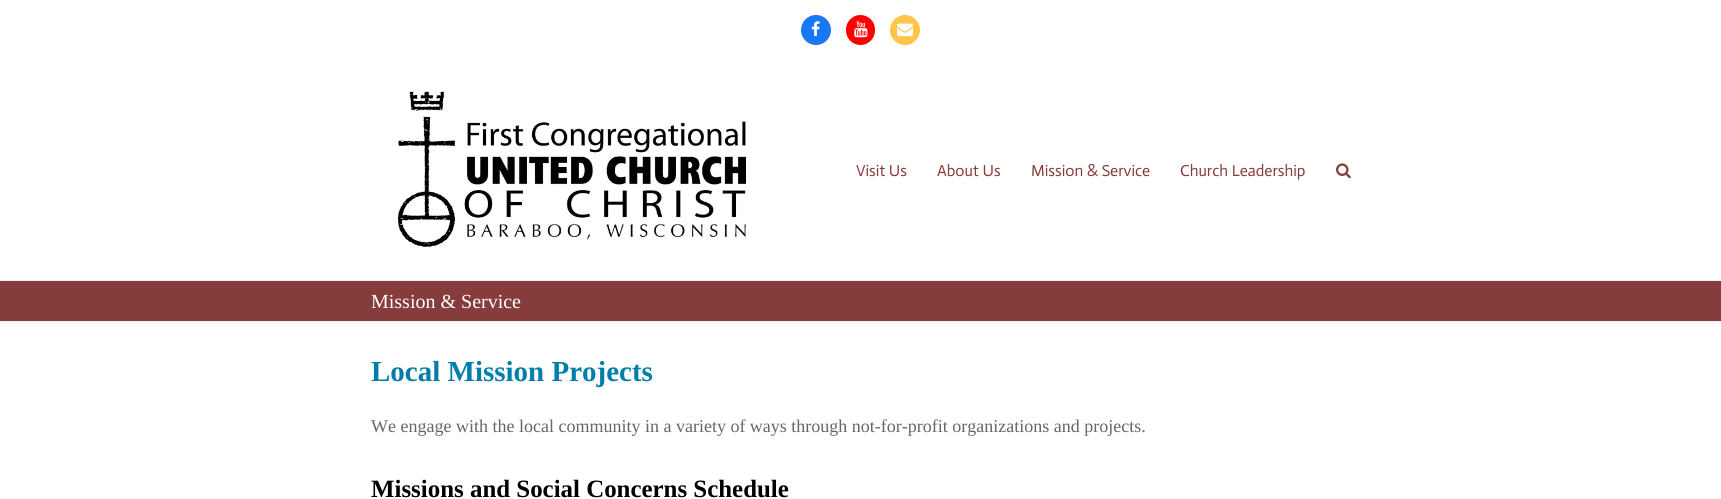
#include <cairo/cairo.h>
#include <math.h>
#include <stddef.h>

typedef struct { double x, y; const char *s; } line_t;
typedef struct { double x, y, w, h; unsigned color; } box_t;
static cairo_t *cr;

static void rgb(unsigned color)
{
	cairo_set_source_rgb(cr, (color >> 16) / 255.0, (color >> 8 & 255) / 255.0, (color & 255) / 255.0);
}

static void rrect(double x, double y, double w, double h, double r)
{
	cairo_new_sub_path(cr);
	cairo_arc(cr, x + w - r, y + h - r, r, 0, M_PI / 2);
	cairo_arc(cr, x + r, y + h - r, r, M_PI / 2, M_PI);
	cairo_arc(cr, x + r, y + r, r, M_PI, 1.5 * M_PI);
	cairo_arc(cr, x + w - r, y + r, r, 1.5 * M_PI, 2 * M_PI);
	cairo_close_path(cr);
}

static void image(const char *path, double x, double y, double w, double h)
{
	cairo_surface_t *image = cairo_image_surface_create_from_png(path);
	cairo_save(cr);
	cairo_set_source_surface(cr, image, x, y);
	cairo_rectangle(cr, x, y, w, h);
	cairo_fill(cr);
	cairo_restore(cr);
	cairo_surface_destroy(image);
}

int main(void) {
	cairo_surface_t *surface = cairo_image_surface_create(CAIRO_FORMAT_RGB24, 1721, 499);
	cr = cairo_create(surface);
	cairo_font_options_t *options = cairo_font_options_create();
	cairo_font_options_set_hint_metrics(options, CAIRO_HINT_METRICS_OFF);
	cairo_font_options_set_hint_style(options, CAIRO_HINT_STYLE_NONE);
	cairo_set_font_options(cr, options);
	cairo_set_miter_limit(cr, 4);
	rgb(0xffffff);
	cairo_paint(cr);
	rgb(0x1877f2);
	cairo_arc(cr, 816, 30, 15, 0, 2 * M_PI);
	cairo_fill(cr);
	image("img/1.png", 811, 21, 9, 16);
	rgb(0xff0000);
	rrect(846, 15, 29, 30, 14.5);
	cairo_fill(cr);
	image("img/2.png", 854, 21, 14, 17);
	rgb(0xffc548);
	cairo_arc(cr, 905, 30, 15, 0, 2 * M_PI);
	cairo_fill(cr);
	image("img/3.png", 897, 23, 16, 14);
	image("img/4.png", 398, 91, 348, 156);
	image("img/5.png", 1336, 163, 15, 16);
	{
		static const box_t items[] = {
			{0, 281, 1721, 40, 0x873c3c},
			{0, 280, 1721, 1, 0xeeeeee},
			{0, 321, 1721, 1, 0xeeeeee},
		};
		for (size_t i = 0; i < sizeof items / sizeof *items; i++) {
			rgb(items[i].color);
			cairo_rectangle(cr, items[i].x, items[i].y, items[i].w, items[i].h);
			cairo_fill(cr);
		}
	}
	cairo_select_font_face(cr, "Actor", CAIRO_FONT_SLANT_NORMAL, CAIRO_FONT_WEIGHT_NORMAL);
	cairo_set_font_size(cr, 16);
	rgb(0x873c3c);
	{
		static const line_t items[] = {
			{856, 176, "Visit Us"},
			{937, 176, "About Us"},
			{1031, 176, "Mission & Service"},
			{1180, 176, "Church Leadership"},
		};
		for (size_t i = 0; i < sizeof items / sizeof *items; i++) {
			cairo_move_to(cr, items[i].x, items[i].y);
			cairo_show_text(cr, items[i].s);
		}
	}
	cairo_select_font_face(cr, "Liberation Serif", CAIRO_FONT_SLANT_NORMAL, CAIRO_FONT_WEIGHT_NORMAL);
	cairo_set_font_size(cr, 20);
	rgb(0xffffff);
	cairo_move_to(cr, 371, 308);
	cairo_show_text(cr, "Mission & Service");
	cairo_select_font_face(cr, "Liberation Serif", CAIRO_FONT_SLANT_NORMAL, CAIRO_FONT_WEIGHT_BOLD);
	cairo_set_font_size(cr, 29);
	rgb(0x007ea9);
	cairo_move_to(cr, 371, 381);
	cairo_show_text(cr, "Local Mission Projects");
	cairo_select_font_face(cr, "Liberation Serif", CAIRO_FONT_SLANT_NORMAL, CAIRO_FONT_WEIGHT_NORMAL);
	cairo_set_font_size(cr, 18);
	rgb(0x666666);
	cairo_move_to(cr, 371, 432);
	cairo_show_text(cr, "We engage with the local community in a variety of ways through not-for-profit organizations and projects.");
	cairo_select_font_face(cr, "Liberation Serif", CAIRO_FONT_SLANT_NORMAL, CAIRO_FONT_WEIGHT_BOLD);
	cairo_set_font_size(cr, 24.9);
	rgb(0x000000);
	cairo_move_to(cr, 371, 497);
	cairo_show_text(cr, "Missions and Social Concerns Schedule");
	cairo_surface_write_to_png(surface, "page.png");
	cairo_font_options_destroy(options);
	cairo_destroy(cr);
	cairo_surface_destroy(surface);
	return 0;
}
